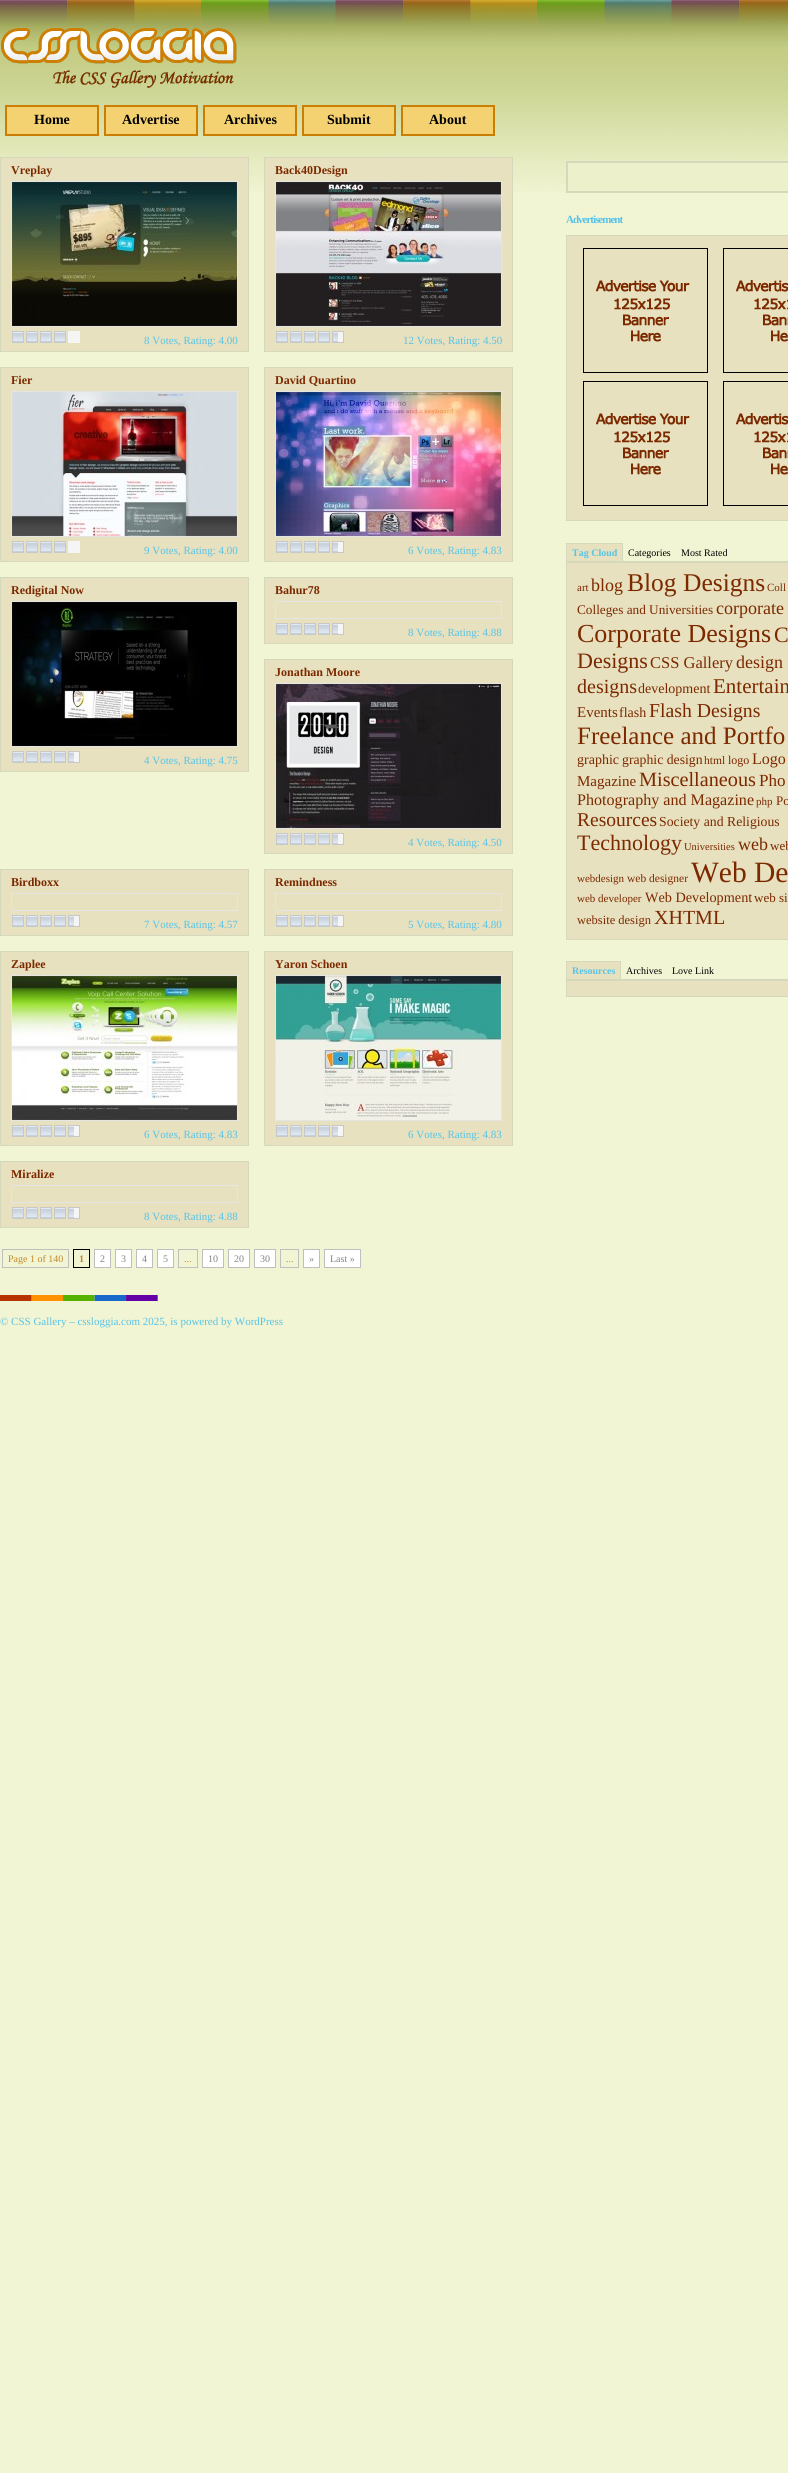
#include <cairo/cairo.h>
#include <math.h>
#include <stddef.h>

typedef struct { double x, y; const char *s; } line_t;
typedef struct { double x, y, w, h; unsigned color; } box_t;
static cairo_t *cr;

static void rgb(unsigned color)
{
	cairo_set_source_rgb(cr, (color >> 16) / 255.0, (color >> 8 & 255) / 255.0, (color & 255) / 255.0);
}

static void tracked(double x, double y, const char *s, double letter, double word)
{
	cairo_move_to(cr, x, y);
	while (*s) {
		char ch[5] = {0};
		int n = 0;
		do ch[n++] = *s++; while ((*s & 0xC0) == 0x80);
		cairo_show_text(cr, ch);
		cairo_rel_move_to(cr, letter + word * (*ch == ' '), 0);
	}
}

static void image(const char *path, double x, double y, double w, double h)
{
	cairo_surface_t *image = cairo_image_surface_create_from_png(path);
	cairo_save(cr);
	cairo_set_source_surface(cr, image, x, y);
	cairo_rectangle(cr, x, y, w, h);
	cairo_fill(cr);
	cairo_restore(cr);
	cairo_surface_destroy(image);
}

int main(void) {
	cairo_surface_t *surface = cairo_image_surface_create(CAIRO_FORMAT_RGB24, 788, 2473);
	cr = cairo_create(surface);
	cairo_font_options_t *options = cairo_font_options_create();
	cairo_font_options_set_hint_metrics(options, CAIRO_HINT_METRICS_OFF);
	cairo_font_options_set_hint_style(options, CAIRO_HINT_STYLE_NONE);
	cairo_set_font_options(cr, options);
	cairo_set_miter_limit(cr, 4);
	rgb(0xf1f5d4);
	cairo_paint(cr);
	image("img/1.png", 0, 0, 788, 192);
	image("img/2.png", 1, 28, 236, 60);
	rgb(0xf4d271);
	cairo_rectangle(cr, 6, 106, 92, 29);
	cairo_fill_preserve(cr);
	rgb(0xca7f02);
	cairo_stroke(cr);
	rgb(0xf4d271);
	cairo_rectangle(cr, 105, 106, 92, 29);
	cairo_fill_preserve(cr);
	rgb(0xca7f02);
	cairo_stroke(cr);
	rgb(0xf4d271);
	cairo_rectangle(cr, 204, 106, 92, 29);
	cairo_fill_preserve(cr);
	rgb(0xca7f02);
	cairo_stroke(cr);
	rgb(0xf4d271);
	cairo_rectangle(cr, 303, 106, 92, 29);
	cairo_fill_preserve(cr);
	rgb(0xca7f02);
	cairo_stroke(cr);
	rgb(0xf4d271);
	cairo_rectangle(cr, 402, 106, 92, 29);
	cairo_fill_preserve(cr);
	rgb(0xca7f02);
	cairo_stroke(cr);
	rgb(0xe7e1bf);
	cairo_rectangle(cr, 0.5, 157.5, 248, 194);
	cairo_fill_preserve(cr);
	rgb(0xd5d9bc);
	cairo_set_line_width(cr, 1);
	cairo_stroke(cr);
	cairo_rectangle(cr, 11.5, 181.5, 226, 145);
	rgb(0xe5e5e5);
	cairo_stroke(cr);
	image("img/3.png", 12, 182, 225, 144);
	image("img/4.png", 12, 331, 12, 12);
	image("img/4.png", 26, 331, 12, 12);
	image("img/4.png", 40, 331, 12, 12);
	image("img/4.png", 54, 331, 12, 12);
	rgb(0xf5f5f5);
	cairo_rectangle(cr, 68, 331, 12, 12);
	cairo_fill(cr);
	rgb(0xe7e1bf);
	cairo_rectangle(cr, 264.5, 157.5, 248, 194);
	cairo_fill_preserve(cr);
	rgb(0xd5d9bc);
	cairo_stroke(cr);
	cairo_rectangle(cr, 275.5, 181.5, 226, 145);
	rgb(0xe5e5e5);
	cairo_stroke(cr);
	image("img/5.png", 276, 182, 225, 144);
	image("img/4.png", 276, 331, 12, 12);
	image("img/4.png", 290, 331, 12, 12);
	image("img/4.png", 304, 331, 12, 12);
	image("img/4.png", 318, 331, 12, 12);
	image("img/6.png", 332, 331, 12, 12);
	rgb(0xe7e1bf);
	cairo_rectangle(cr, 0.5, 367.5, 248, 194);
	cairo_fill_preserve(cr);
	rgb(0xd5d9bc);
	cairo_stroke(cr);
	cairo_rectangle(cr, 11.5, 391.5, 226, 145);
	rgb(0xe5e5e5);
	cairo_stroke(cr);
	image("img/7.png", 12, 392, 225, 144);
	image("img/4.png", 12, 541, 12, 12);
	image("img/4.png", 26, 541, 12, 12);
	image("img/4.png", 40, 541, 12, 12);
	image("img/4.png", 54, 541, 12, 12);
	rgb(0xf5f5f5);
	cairo_rectangle(cr, 68, 541, 12, 12);
	cairo_fill(cr);
	rgb(0xe7e1bf);
	cairo_rectangle(cr, 264.5, 367.5, 248, 194);
	cairo_fill_preserve(cr);
	rgb(0xd5d9bc);
	cairo_stroke(cr);
	cairo_rectangle(cr, 275.5, 391.5, 226, 145);
	rgb(0xe5e5e5);
	cairo_stroke(cr);
	image("img/8.png", 276, 392, 225, 144);
	image("img/4.png", 276, 541, 12, 12);
	image("img/4.png", 290, 541, 12, 12);
	image("img/4.png", 304, 541, 12, 12);
	image("img/4.png", 318, 541, 12, 12);
	image("img/6.png", 332, 541, 12, 12);
	rgb(0xe7e1bf);
	cairo_rectangle(cr, 0.5, 577.5, 248, 194);
	cairo_fill_preserve(cr);
	rgb(0xd5d9bc);
	cairo_stroke(cr);
	cairo_rectangle(cr, 11.5, 601.5, 226, 145);
	rgb(0xe5e5e5);
	cairo_stroke(cr);
	image("img/9.png", 12, 602, 225, 144);
	image("img/4.png", 12, 751, 12, 12);
	image("img/4.png", 26, 751, 12, 12);
	image("img/4.png", 40, 751, 12, 12);
	image("img/4.png", 54, 751, 12, 12);
	image("img/6.png", 68, 751, 12, 12);
	rgb(0xe7e1bf);
	cairo_rectangle(cr, 264.5, 577.5, 248, 66);
	cairo_fill_preserve(cr);
	rgb(0xd5d9bc);
	cairo_stroke(cr);
	cairo_rectangle(cr, 275.5, 601.5, 226, 17);
	rgb(0xe5e5e5);
	cairo_stroke(cr);
	image("img/4.png", 276, 623, 12, 12);
	image("img/4.png", 290, 623, 12, 12);
	image("img/4.png", 304, 623, 12, 12);
	image("img/4.png", 318, 623, 12, 12);
	image("img/6.png", 332, 623, 12, 12);
	rgb(0xe7e1bf);
	cairo_rectangle(cr, 264.5, 659.5, 248, 194);
	cairo_fill_preserve(cr);
	rgb(0xd5d9bc);
	cairo_stroke(cr);
	cairo_rectangle(cr, 275.5, 683.5, 226, 145);
	rgb(0xe5e5e5);
	cairo_stroke(cr);
	image("img/10.png", 276, 684, 225, 144);
	image("img/4.png", 276, 833, 12, 12);
	image("img/4.png", 290, 833, 12, 12);
	image("img/4.png", 304, 833, 12, 12);
	image("img/4.png", 318, 833, 12, 12);
	image("img/6.png", 332, 833, 12, 12);
	rgb(0xe7e1bf);
	cairo_rectangle(cr, 0.5, 869.5, 248, 66);
	cairo_fill_preserve(cr);
	rgb(0xd5d9bc);
	cairo_stroke(cr);
	cairo_rectangle(cr, 11.5, 893.5, 226, 17);
	rgb(0xe5e5e5);
	cairo_stroke(cr);
	image("img/4.png", 12, 915, 12, 12);
	image("img/4.png", 26, 915, 12, 12);
	image("img/4.png", 40, 915, 12, 12);
	image("img/4.png", 54, 915, 12, 12);
	image("img/6.png", 68, 915, 12, 12);
	rgb(0xe7e1bf);
	cairo_rectangle(cr, 264.5, 869.5, 248, 66);
	cairo_fill_preserve(cr);
	rgb(0xd5d9bc);
	cairo_stroke(cr);
	cairo_rectangle(cr, 275.5, 893.5, 226, 17);
	rgb(0xe5e5e5);
	cairo_stroke(cr);
	image("img/4.png", 276, 915, 12, 12);
	image("img/4.png", 290, 915, 12, 12);
	image("img/4.png", 304, 915, 12, 12);
	image("img/4.png", 318, 915, 12, 12);
	image("img/6.png", 332, 915, 12, 12);
	rgb(0xe7e1bf);
	cairo_rectangle(cr, 0.5, 951.5, 248, 194);
	cairo_fill_preserve(cr);
	rgb(0xd5d9bc);
	cairo_stroke(cr);
	cairo_rectangle(cr, 11.5, 975.5, 226, 145);
	rgb(0xe5e5e5);
	cairo_stroke(cr);
	image("img/11.png", 12, 976, 225, 144);
	image("img/4.png", 12, 1125, 12, 12);
	image("img/4.png", 26, 1125, 12, 12);
	image("img/4.png", 40, 1125, 12, 12);
	image("img/4.png", 54, 1125, 12, 12);
	image("img/6.png", 68, 1125, 12, 12);
	rgb(0xe7e1bf);
	cairo_rectangle(cr, 264.5, 951.5, 248, 194);
	cairo_fill_preserve(cr);
	rgb(0xd5d9bc);
	cairo_stroke(cr);
	cairo_rectangle(cr, 275.5, 975.5, 226, 145);
	rgb(0xe5e5e5);
	cairo_stroke(cr);
	image("img/12.png", 276, 976, 225, 144);
	image("img/4.png", 276, 1125, 12, 12);
	image("img/4.png", 290, 1125, 12, 12);
	image("img/4.png", 304, 1125, 12, 12);
	image("img/4.png", 318, 1125, 12, 12);
	image("img/6.png", 332, 1125, 12, 12);
	rgb(0xe7e1bf);
	cairo_rectangle(cr, 0.5, 1161.5, 248, 66);
	cairo_fill_preserve(cr);
	rgb(0xd5d9bc);
	cairo_stroke(cr);
	cairo_rectangle(cr, 11.5, 1185.5, 226, 17);
	rgb(0xe5e5e5);
	cairo_stroke(cr);
	image("img/4.png", 12, 1207, 12, 12);
	image("img/4.png", 26, 1207, 12, 12);
	image("img/4.png", 40, 1207, 12, 12);
	image("img/4.png", 54, 1207, 12, 12);
	image("img/6.png", 68, 1207, 12, 12);
	cairo_rectangle(cr, 2.5, 1249.5, 66, 18);
	rgb(0xbfbfbf);
	cairo_stroke(cr);
	cairo_rectangle(cr, 73.5, 1249.5, 16, 18);
	rgb(0x000000);
	cairo_stroke(cr);
	rgb(0xffffff);
	cairo_rectangle(cr, 94.5, 1249.5, 16, 18);
	cairo_fill_preserve(cr);
	rgb(0xbfbfbf);
	cairo_stroke(cr);
	rgb(0xffffff);
	cairo_rectangle(cr, 115.5, 1249.5, 16, 18);
	cairo_fill_preserve(cr);
	rgb(0xbfbfbf);
	cairo_stroke(cr);
	rgb(0xffffff);
	cairo_rectangle(cr, 136.5, 1249.5, 16, 18);
	cairo_fill_preserve(cr);
	rgb(0xbfbfbf);
	cairo_stroke(cr);
	rgb(0xffffff);
	cairo_rectangle(cr, 157.5, 1249.5, 16, 18);
	cairo_fill_preserve(cr);
	rgb(0xbfbfbf);
	cairo_stroke(cr);
	cairo_rectangle(cr, 178.5, 1249.5, 19, 18);
	cairo_stroke(cr);
	rgb(0xffffff);
	cairo_rectangle(cr, 202.5, 1249.5, 21, 18);
	cairo_fill_preserve(cr);
	rgb(0xbfbfbf);
	cairo_stroke(cr);
	rgb(0xffffff);
	cairo_rectangle(cr, 228.5, 1249.5, 21, 18);
	cairo_fill_preserve(cr);
	rgb(0xbfbfbf);
	cairo_stroke(cr);
	rgb(0xffffff);
	cairo_rectangle(cr, 254.5, 1249.5, 21, 18);
	cairo_fill_preserve(cr);
	rgb(0xbfbfbf);
	cairo_stroke(cr);
	cairo_rectangle(cr, 280.5, 1249.5, 18, 18);
	cairo_stroke(cr);
	rgb(0xffffff);
	cairo_rectangle(cr, 303.5, 1249.5, 16, 18);
	cairo_fill_preserve(cr);
	rgb(0xbfbfbf);
	cairo_stroke(cr);
	rgb(0xffffff);
	cairo_rectangle(cr, 324.5, 1249.5, 36, 18);
	cairo_fill_preserve(cr);
	rgb(0xbfbfbf);
	cairo_stroke(cr);
	image("img/13.png", 566, 161, 222, 32);
	rgb(0xe7e1bf);
	cairo_rectangle(cr, 566.5, 235.5, 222, 285);
	cairo_fill_preserve(cr);
	rgb(0xd5d9bc);
	cairo_stroke(cr);
	image("img/14.png", 583, 248, 125, 125);
	image("img/15.png", 723, 248, 65, 125);
	image("img/14.png", 583, 381, 125, 125);
	image("img/15.png", 723, 381, 65, 125);
	cairo_rectangle(cr, 566, 561, 222, 2);
	cairo_fill(cr);
	rgb(0xe7e1bf);
	cairo_rectangle(cr, 566.5, 543.5, 56, 18);
	cairo_fill_preserve(cr);
	rgb(0xd5d9bc);
	cairo_stroke(cr);
	{
		static const box_t items[] = {
			{567, 563, 221, 376, 0xe7e1bf},
			{566, 939, 222, 1, 0xd5d9bc},
			{566, 563, 1, 377, 0xd5d9bc},
			{566, 979, 222, 2, 0xd5d9bc},
		};
		for (size_t i = 0; i < sizeof items / sizeof *items; i++) {
			rgb(items[i].color);
			cairo_rectangle(cr, items[i].x, items[i].y, items[i].w, items[i].h);
			cairo_fill(cr);
		}
	}
	rgb(0xe7e1bf);
	cairo_rectangle(cr, 566.5, 961.5, 54, 18);
	cairo_fill_preserve(cr);
	rgb(0xd5d9bc);
	cairo_stroke(cr);
	{
		static const box_t items[] = {
			{567, 981, 221, 15, 0xe7e1bf},
			{566, 996, 222, 1, 0xd5d9bc},
			{566, 981, 1, 16, 0xd5d9bc},
		};
		for (size_t i = 0; i < sizeof items / sizeof *items; i++) {
			rgb(items[i].color);
			cairo_rectangle(cr, items[i].x, items[i].y, items[i].w, items[i].h);
			cairo_fill(cr);
		}
	}
	image("img/16.png", 0, 1295, 158, 6);
	cairo_select_font_face(cr, "Liberation Serif", CAIRO_FONT_SLANT_NORMAL, CAIRO_FONT_WEIGHT_BOLD);
	cairo_set_font_size(cr, 14);
	rgb(0x000000);
	{
		static const line_t items[] = {
			{34, 124, "Home"},
			{122, 124, "Advertise"},
			{224, 124, "Archives"},
			{327, 124, "Submit"},
			{429, 124, "About"},
		};
		for (size_t i = 0; i < sizeof items / sizeof *items; i++) {
			cairo_move_to(cr, items[i].x, items[i].y);
			cairo_show_text(cr, items[i].s);
		}
	}
	cairo_set_font_size(cr, 12);
	rgb(0x7c2900);
	cairo_move_to(cr, 11, 174);
	cairo_show_text(cr, "Vreplay");
	cairo_select_font_face(cr, "Liberation Serif", CAIRO_FONT_SLANT_NORMAL, CAIRO_FONT_WEIGHT_NORMAL);
	cairo_set_font_size(cr, 11);
	rgb(0x57c3e7);
	cairo_move_to(cr, 144, 344);
	cairo_show_text(cr, "8 Votes, Rating: 4.00");
	cairo_select_font_face(cr, "Liberation Serif", CAIRO_FONT_SLANT_NORMAL, CAIRO_FONT_WEIGHT_BOLD);
	cairo_set_font_size(cr, 12);
	rgb(0x7c2900);
	cairo_move_to(cr, 275, 174);
	cairo_show_text(cr, "Back40Design");
	cairo_select_font_face(cr, "Liberation Serif", CAIRO_FONT_SLANT_NORMAL, CAIRO_FONT_WEIGHT_NORMAL);
	cairo_set_font_size(cr, 11);
	rgb(0x57c3e7);
	cairo_move_to(cr, 403, 344);
	cairo_show_text(cr, "12 Votes, Rating: 4.50");
	cairo_select_font_face(cr, "Liberation Serif", CAIRO_FONT_SLANT_NORMAL, CAIRO_FONT_WEIGHT_BOLD);
	cairo_set_font_size(cr, 12);
	rgb(0x7c2900);
	cairo_move_to(cr, 11, 384);
	cairo_show_text(cr, "Fier");
	cairo_select_font_face(cr, "Liberation Serif", CAIRO_FONT_SLANT_NORMAL, CAIRO_FONT_WEIGHT_NORMAL);
	cairo_set_font_size(cr, 11);
	rgb(0x57c3e7);
	cairo_move_to(cr, 144, 554);
	cairo_show_text(cr, "9 Votes, Rating: 4.00");
	cairo_select_font_face(cr, "Liberation Serif", CAIRO_FONT_SLANT_NORMAL, CAIRO_FONT_WEIGHT_BOLD);
	cairo_set_font_size(cr, 12);
	rgb(0x7c2900);
	cairo_move_to(cr, 275, 384);
	cairo_show_text(cr, "David Quartino");
	cairo_select_font_face(cr, "Liberation Serif", CAIRO_FONT_SLANT_NORMAL, CAIRO_FONT_WEIGHT_NORMAL);
	cairo_set_font_size(cr, 11);
	rgb(0x57c3e7);
	cairo_move_to(cr, 408, 554);
	cairo_show_text(cr, "6 Votes, Rating: 4.83");
	cairo_select_font_face(cr, "Liberation Serif", CAIRO_FONT_SLANT_NORMAL, CAIRO_FONT_WEIGHT_BOLD);
	cairo_set_font_size(cr, 12);
	rgb(0x7c2900);
	cairo_move_to(cr, 11, 594);
	cairo_show_text(cr, "Redigital Now");
	cairo_select_font_face(cr, "Liberation Serif", CAIRO_FONT_SLANT_NORMAL, CAIRO_FONT_WEIGHT_NORMAL);
	cairo_set_font_size(cr, 11);
	rgb(0x57c3e7);
	cairo_move_to(cr, 144, 764);
	cairo_show_text(cr, "4 Votes, Rating: 4.75");
	cairo_select_font_face(cr, "Liberation Serif", CAIRO_FONT_SLANT_NORMAL, CAIRO_FONT_WEIGHT_BOLD);
	cairo_set_font_size(cr, 12);
	rgb(0x7c2900);
	cairo_move_to(cr, 275, 594);
	cairo_show_text(cr, "Bahur78");
	cairo_select_font_face(cr, "Liberation Serif", CAIRO_FONT_SLANT_NORMAL, CAIRO_FONT_WEIGHT_NORMAL);
	cairo_set_font_size(cr, 11);
	rgb(0x57c3e7);
	cairo_move_to(cr, 408, 636);
	cairo_show_text(cr, "8 Votes, Rating: 4.88");
	cairo_select_font_face(cr, "Liberation Serif", CAIRO_FONT_SLANT_NORMAL, CAIRO_FONT_WEIGHT_BOLD);
	cairo_set_font_size(cr, 12);
	rgb(0x7c2900);
	cairo_move_to(cr, 275, 676);
	cairo_show_text(cr, "Jonathan Moore");
	cairo_select_font_face(cr, "Liberation Serif", CAIRO_FONT_SLANT_NORMAL, CAIRO_FONT_WEIGHT_NORMAL);
	cairo_set_font_size(cr, 11);
	rgb(0x57c3e7);
	cairo_move_to(cr, 408, 846);
	cairo_show_text(cr, "4 Votes, Rating: 4.50");
	cairo_select_font_face(cr, "Liberation Serif", CAIRO_FONT_SLANT_NORMAL, CAIRO_FONT_WEIGHT_BOLD);
	cairo_set_font_size(cr, 12);
	rgb(0x7c2900);
	cairo_move_to(cr, 11, 886);
	cairo_show_text(cr, "Birdboxx");
	cairo_select_font_face(cr, "Liberation Serif", CAIRO_FONT_SLANT_NORMAL, CAIRO_FONT_WEIGHT_NORMAL);
	cairo_set_font_size(cr, 11);
	rgb(0x57c3e7);
	cairo_move_to(cr, 144, 928);
	cairo_show_text(cr, "7 Votes, Rating: 4.57");
	cairo_select_font_face(cr, "Liberation Serif", CAIRO_FONT_SLANT_NORMAL, CAIRO_FONT_WEIGHT_BOLD);
	cairo_set_font_size(cr, 12);
	rgb(0x7c2900);
	cairo_move_to(cr, 275, 886);
	cairo_show_text(cr, "Remindness");
	cairo_select_font_face(cr, "Liberation Serif", CAIRO_FONT_SLANT_NORMAL, CAIRO_FONT_WEIGHT_NORMAL);
	cairo_set_font_size(cr, 11);
	rgb(0x57c3e7);
	cairo_move_to(cr, 408, 928);
	cairo_show_text(cr, "5 Votes, Rating: 4.80");
	cairo_select_font_face(cr, "Liberation Serif", CAIRO_FONT_SLANT_NORMAL, CAIRO_FONT_WEIGHT_BOLD);
	cairo_set_font_size(cr, 12);
	rgb(0x7c2900);
	cairo_move_to(cr, 11, 968);
	cairo_show_text(cr, "Zaplee");
	cairo_select_font_face(cr, "Liberation Serif", CAIRO_FONT_SLANT_NORMAL, CAIRO_FONT_WEIGHT_NORMAL);
	cairo_set_font_size(cr, 11);
	rgb(0x57c3e7);
	cairo_move_to(cr, 144, 1138);
	cairo_show_text(cr, "6 Votes, Rating: 4.83");
	cairo_select_font_face(cr, "Liberation Serif", CAIRO_FONT_SLANT_NORMAL, CAIRO_FONT_WEIGHT_BOLD);
	cairo_set_font_size(cr, 12);
	rgb(0x7c2900);
	cairo_move_to(cr, 275, 968);
	cairo_show_text(cr, "Yaron Schoen");
	cairo_select_font_face(cr, "Liberation Serif", CAIRO_FONT_SLANT_NORMAL, CAIRO_FONT_WEIGHT_NORMAL);
	cairo_set_font_size(cr, 11);
	rgb(0x57c3e7);
	cairo_move_to(cr, 408, 1138);
	cairo_show_text(cr, "6 Votes, Rating: 4.83");
	cairo_select_font_face(cr, "Liberation Serif", CAIRO_FONT_SLANT_NORMAL, CAIRO_FONT_WEIGHT_BOLD);
	cairo_set_font_size(cr, 12);
	rgb(0x7c2900);
	cairo_move_to(cr, 11, 1178);
	cairo_show_text(cr, "Miralize");
	cairo_select_font_face(cr, "Liberation Serif", CAIRO_FONT_SLANT_NORMAL, CAIRO_FONT_WEIGHT_NORMAL);
	cairo_set_font_size(cr, 11);
	rgb(0x57c3e7);
	cairo_move_to(cr, 144, 1220);
	cairo_show_text(cr, "8 Votes, Rating: 4.88");
	cairo_set_font_size(cr, 10);
	rgb(0xc38729);
	cairo_move_to(cr, 8, 1262);
	cairo_show_text(cr, "Page 1 of 140");
	cairo_select_font_face(cr, "Liberation Serif", CAIRO_FONT_SLANT_NORMAL, CAIRO_FONT_WEIGHT_BOLD);
	cairo_move_to(cr, 79, 1262);
	cairo_show_text(cr, "1");
	cairo_select_font_face(cr, "Liberation Serif", CAIRO_FONT_SLANT_NORMAL, CAIRO_FONT_WEIGHT_NORMAL);
	rgb(0x838383);
	{
		static const line_t items[] = {
			{100, 1262, "2"},
			{121, 1262, "3"},
			{142, 1262, "4"},
			{163, 1262, "5"},
		};
		for (size_t i = 0; i < sizeof items / sizeof *items; i++) {
			cairo_move_to(cr, items[i].x, items[i].y);
			cairo_show_text(cr, items[i].s);
		}
	}
	rgb(0xc38729);
	cairo_move_to(cr, 184, 1262);
	cairo_show_text(cr, "...");
	rgb(0x838383);
	{
		static const line_t items[] = {
			{208, 1262, "10"},
			{234, 1262, "20"},
			{260, 1262, "30"},
		};
		for (size_t i = 0; i < sizeof items / sizeof *items; i++) {
			cairo_move_to(cr, items[i].x, items[i].y);
			cairo_show_text(cr, items[i].s);
		}
	}
	rgb(0xc38729);
	cairo_move_to(cr, 286, 1262);
	cairo_show_text(cr, "...");
	rgb(0x838383);
	cairo_move_to(cr, 309, 1262);
	cairo_show_text(cr, "»");
	cairo_move_to(cr, 330, 1262);
	cairo_show_text(cr, "Last »");
	cairo_select_font_face(cr, "Liberation Serif", CAIRO_FONT_SLANT_NORMAL, CAIRO_FONT_WEIGHT_BOLD);
	cairo_set_font_size(cr, 11);
	rgb(0x57c3e7);
	tracked(566, 223, "Advertisement", -1, 0);
	cairo_set_font_size(cr, 10);
	cairo_move_to(cr, 572, 556);
	cairo_show_text(cr, "Tag Cloud");
	cairo_select_font_face(cr, "Liberation Serif", CAIRO_FONT_SLANT_NORMAL, CAIRO_FONT_WEIGHT_NORMAL);
	rgb(0x000000);
	cairo_move_to(cr, 628, 556);
	cairo_show_text(cr, "Categories");
	cairo_move_to(cr, 681, 556);
	cairo_show_text(cr, "Most Rated");
	cairo_set_font_size(cr, 11);
	rgb(0x7c2900);
	cairo_move_to(cr, 577, 591);
	cairo_show_text(cr, "art");
	cairo_set_font_size(cr, 18);
	cairo_move_to(cr, 591, 591);
	cairo_show_text(cr, "blog");
	cairo_set_font_size(cr, 25.5);
	cairo_move_to(cr, 627, 591);
	cairo_show_text(cr, "Blog Designs");
	cairo_set_font_size(cr, 11);
	cairo_move_to(cr, 767, 591);
	cairo_show_text(cr, "Coll");
	cairo_set_font_size(cr, 13.25);
	cairo_move_to(cr, 577, 614);
	cairo_show_text(cr, "Colleges and Universities");
	cairo_set_font_size(cr, 18);
	cairo_move_to(cr, 716, 614);
	cairo_show_text(cr, "corporate");
	cairo_set_font_size(cr, 26);
	cairo_move_to(cr, 577, 642);
	cairo_show_text(cr, "Corporate Designs");
	cairo_set_font_size(cr, 22);
	cairo_move_to(cr, 774, 642);
	cairo_show_text(cr, "C");
	cairo_move_to(cr, 577, 668);
	cairo_show_text(cr, "Designs");
	cairo_set_font_size(cr, 16.5);
	cairo_move_to(cr, 650, 668);
	cairo_show_text(cr, "CSS Gallery");
	cairo_set_font_size(cr, 18);
	cairo_move_to(cr, 736, 668);
	cairo_show_text(cr, "design");
	cairo_set_font_size(cr, 20);
	cairo_move_to(cr, 577, 693);
	cairo_show_text(cr, "designs");
	cairo_set_font_size(cr, 14);
	cairo_move_to(cr, 638, 693);
	cairo_show_text(cr, "development");
	cairo_set_font_size(cr, 21);
	cairo_move_to(cr, 713, 693);
	cairo_show_text(cr, "Entertain");
	cairo_set_font_size(cr, 15);
	cairo_move_to(cr, 577, 717);
	cairo_show_text(cr, "Events");
	cairo_set_font_size(cr, 14);
	cairo_move_to(cr, 619, 717);
	cairo_show_text(cr, "flash");
	cairo_set_font_size(cr, 19.75);
	cairo_move_to(cr, 649, 717);
	cairo_show_text(cr, "Flash Designs");
	cairo_set_font_size(cr, 25);
	cairo_move_to(cr, 577, 744);
	cairo_show_text(cr, "Freelance and Portfo");
	cairo_set_font_size(cr, 14);
	cairo_move_to(cr, 577, 764);
	cairo_show_text(cr, "graphic");
	cairo_set_font_size(cr, 13.75);
	cairo_move_to(cr, 622, 764);
	cairo_show_text(cr, "graphic design");
	cairo_set_font_size(cr, 11.5);
	cairo_move_to(cr, 704, 764);
	cairo_show_text(cr, "html");
	cairo_set_font_size(cr, 12);
	cairo_move_to(cr, 728, 764);
	cairo_show_text(cr, "logo");
	cairo_set_font_size(cr, 16);
	cairo_move_to(cr, 752, 764);
	cairo_show_text(cr, "Logo");
	cairo_set_font_size(cr, 15);
	cairo_move_to(cr, 577, 786);
	cairo_show_text(cr, "Magazine");
	cairo_set_font_size(cr, 20.25);
	cairo_move_to(cr, 639, 786);
	cairo_show_text(cr, "Miscellaneous");
	cairo_set_font_size(cr, 17);
	cairo_move_to(cr, 759, 786);
	cairo_show_text(cr, "Pho");
	cairo_set_font_size(cr, 16.1);
	cairo_move_to(cr, 577, 805);
	cairo_show_text(cr, "Photography and Magazine");
	cairo_set_font_size(cr, 11);
	cairo_move_to(cr, 756, 805);
	cairo_show_text(cr, "php");
	cairo_set_font_size(cr, 13);
	cairo_move_to(cr, 776, 805);
	cairo_show_text(cr, "Po");
	cairo_set_font_size(cr, 19.5);
	cairo_move_to(cr, 577, 826);
	cairo_show_text(cr, "Resources");
	cairo_set_font_size(cr, 13.75);
	cairo_move_to(cr, 659, 826);
	cairo_show_text(cr, "Society and Religious");
	cairo_set_font_size(cr, 22);
	cairo_move_to(cr, 577, 850);
	cairo_show_text(cr, "Technology");
	cairo_set_font_size(cr, 10.5);
	cairo_move_to(cr, 684, 850);
	cairo_show_text(cr, "Universities");
	cairo_set_font_size(cr, 18);
	cairo_move_to(cr, 738, 850);
	cairo_show_text(cr, "web");
	cairo_set_font_size(cr, 13);
	cairo_move_to(cr, 770, 850);
	cairo_show_text(cr, "web");
	cairo_set_font_size(cr, 11);
	cairo_move_to(cr, 577, 882);
	cairo_show_text(cr, "webdesign");
	cairo_set_font_size(cr, 11.5);
	cairo_move_to(cr, 627, 882);
	cairo_show_text(cr, "web designer");
	cairo_set_font_size(cr, 29.5);
	cairo_move_to(cr, 691, 882);
	cairo_show_text(cr, "Web De");
	cairo_set_font_size(cr, 11);
	cairo_move_to(cr, 577, 902);
	cairo_show_text(cr, "web developer");
	cairo_set_font_size(cr, 14.25);
	cairo_move_to(cr, 645, 902);
	cairo_show_text(cr, "Web Development");
	cairo_set_font_size(cr, 13);
	cairo_move_to(cr, 754, 902);
	cairo_show_text(cr, "web si");
	cairo_set_font_size(cr, 12.5);
	cairo_move_to(cr, 577, 924);
	cairo_show_text(cr, "website design");
	cairo_set_font_size(cr, 20);
	cairo_move_to(cr, 654, 924);
	cairo_show_text(cr, "XHTML");
	cairo_select_font_face(cr, "Liberation Serif", CAIRO_FONT_SLANT_NORMAL, CAIRO_FONT_WEIGHT_BOLD);
	cairo_set_font_size(cr, 10);
	rgb(0x57c3e7);
	cairo_move_to(cr, 572, 974);
	cairo_show_text(cr, "Resources");
	cairo_select_font_face(cr, "Liberation Serif", CAIRO_FONT_SLANT_NORMAL, CAIRO_FONT_WEIGHT_NORMAL);
	rgb(0x000000);
	cairo_move_to(cr, 626, 974);
	cairo_show_text(cr, "Archives");
	cairo_move_to(cr, 672, 974);
	cairo_show_text(cr, "Love Link");
	cairo_set_font_size(cr, 11);
	rgb(0x57c3e7);
	cairo_move_to(cr, 0, 1325);
	cairo_show_text(cr, "© CSS Gallery – cssloggia.com 2025, is powered by WordPress");
	cairo_surface_write_to_png(surface, "page.png");
	cairo_font_options_destroy(options);
	cairo_destroy(cr);
	cairo_surface_destroy(surface);
	return 0;
}
